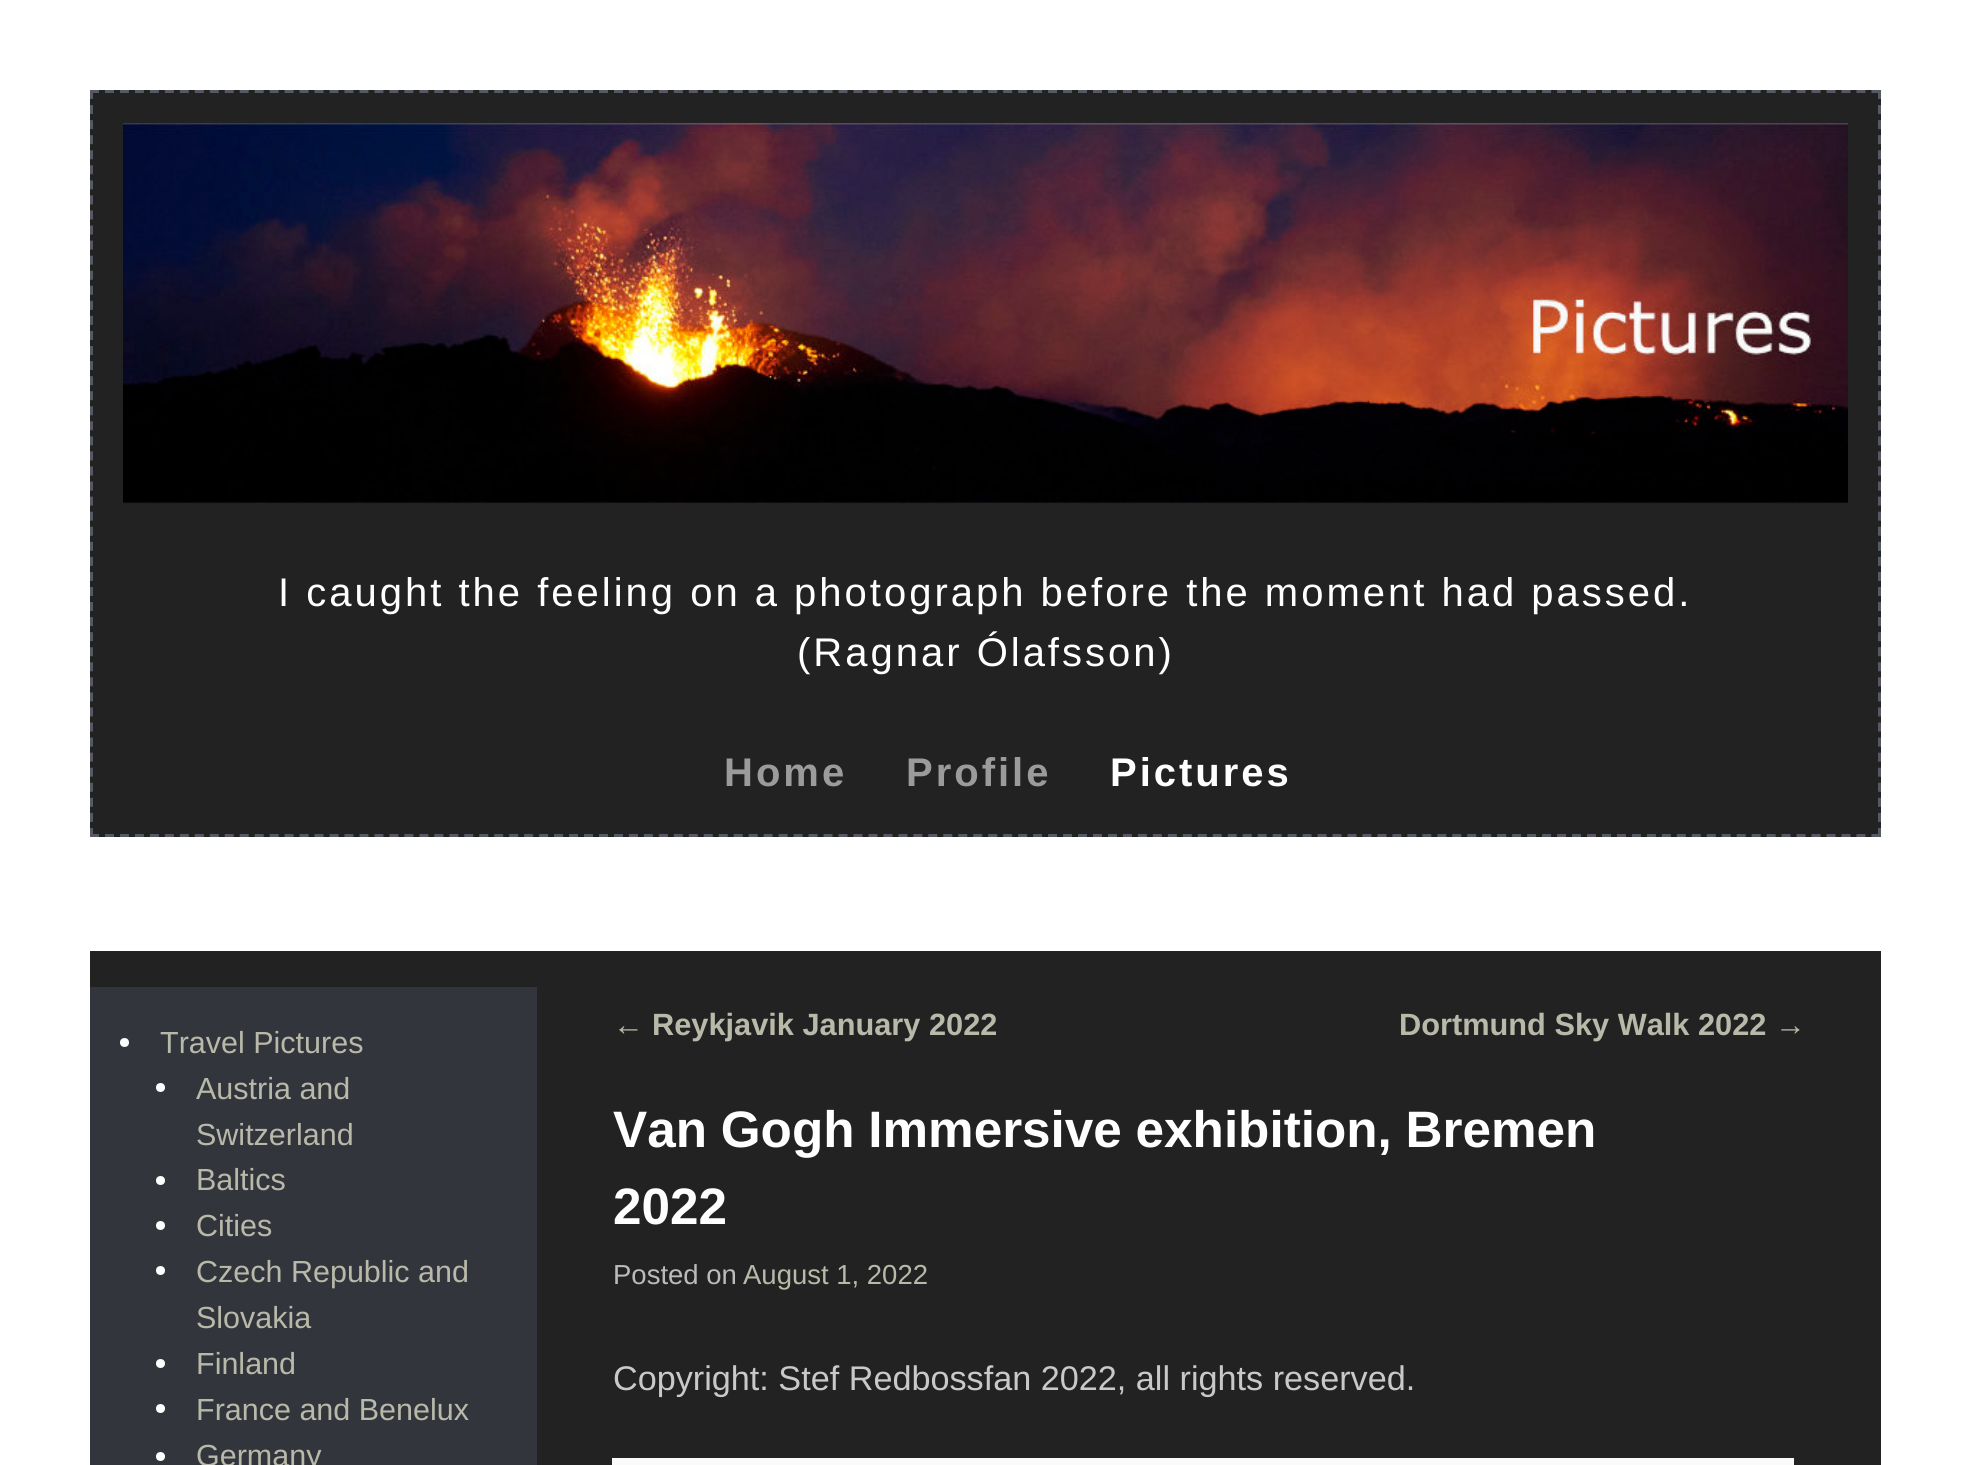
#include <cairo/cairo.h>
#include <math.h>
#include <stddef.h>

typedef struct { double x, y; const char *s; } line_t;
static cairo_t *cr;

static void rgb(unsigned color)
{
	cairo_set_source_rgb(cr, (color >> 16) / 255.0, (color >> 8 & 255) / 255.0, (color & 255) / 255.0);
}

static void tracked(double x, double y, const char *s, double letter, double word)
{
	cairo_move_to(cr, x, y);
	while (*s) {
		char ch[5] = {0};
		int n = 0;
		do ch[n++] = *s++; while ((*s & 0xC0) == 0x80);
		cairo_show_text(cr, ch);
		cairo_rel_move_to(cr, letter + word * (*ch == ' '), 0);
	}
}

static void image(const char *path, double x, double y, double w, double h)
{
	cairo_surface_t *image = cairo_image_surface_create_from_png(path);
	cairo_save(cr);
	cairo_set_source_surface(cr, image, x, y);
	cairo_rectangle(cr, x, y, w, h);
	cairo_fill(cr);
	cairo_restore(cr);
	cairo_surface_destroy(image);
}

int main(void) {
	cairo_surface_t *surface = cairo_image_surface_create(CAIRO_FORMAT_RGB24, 1970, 1465);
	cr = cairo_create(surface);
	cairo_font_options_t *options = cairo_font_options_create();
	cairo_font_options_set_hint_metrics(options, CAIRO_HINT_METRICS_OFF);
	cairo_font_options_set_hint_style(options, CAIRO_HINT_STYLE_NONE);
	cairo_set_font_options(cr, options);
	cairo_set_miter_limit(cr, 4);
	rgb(0xffffff);
	cairo_paint(cr);
	rgb(0x222222);
	cairo_rectangle(cr, 90, 90, 1791, 747);
	cairo_fill(cr);
	cairo_new_path(cr);
	cairo_move_to(cr, 90, 91.5);
	cairo_line_to(cr, 1881, 91.5);
	rgb(0x555964);
	cairo_set_line_width(cr, 3);
	cairo_set_dash(cr, (double[]){9, 5.97}, 2, 0);
	cairo_stroke(cr);
	cairo_new_path(cr);
	cairo_move_to(cr, 1879.5, 90);
	cairo_line_to(cr, 1879.5, 837);
	cairo_set_dash(cr, (double[]){9, 6.06}, 2, 0);
	cairo_stroke(cr);
	cairo_new_path(cr);
	cairo_move_to(cr, 90, 835.5);
	cairo_line_to(cr, 1881, 835.5);
	cairo_set_dash(cr, (double[]){9, 5.97}, 2, 0);
	cairo_stroke(cr);
	cairo_new_path(cr);
	cairo_move_to(cr, 91.5, 90);
	cairo_line_to(cr, 91.5, 837);
	cairo_set_dash(cr, (double[]){9, 6.06}, 2, 0);
	cairo_stroke(cr);
	image("img/1.png", 123, 123, 1725, 381);
	rgb(0x222222);
	cairo_rectangle(cr, 90, 951, 1791, 514);
	cairo_fill(cr);
	rgb(0x33353d);
	cairo_rectangle(cr, 90, 987, 447, 478);
	cairo_fill(cr);
	rgb(0xffffff);
	cairo_arc(cr, 124.5, 1042.5, 4.5, 0, 2 * M_PI);
	cairo_fill(cr);
	cairo_arc(cr, 160.5, 1087.5, 4.5, 0, 2 * M_PI);
	cairo_fill(cr);
	cairo_arc(cr, 160.5, 1180.5, 4.5, 0, 2 * M_PI);
	cairo_fill(cr);
	cairo_arc(cr, 160.5, 1225.5, 4.5, 0, 2 * M_PI);
	cairo_fill(cr);
	cairo_arc(cr, 160.5, 1270.5, 4.5, 0, 2 * M_PI);
	cairo_fill(cr);
	cairo_arc(cr, 160.5, 1363.5, 4.5, 0, 2 * M_PI);
	cairo_fill(cr);
	cairo_arc(cr, 160.5, 1408.5, 4.5, 0, 2 * M_PI);
	cairo_fill(cr);
	cairo_arc(cr, 160.5, 1456.5, 4.5, 0, 2 * M_PI);
	cairo_fill(cr);
	rgb(0xfafafa);
	cairo_rectangle(cr, 612, 1458, 1182, 7);
	cairo_fill(cr);
	cairo_select_font_face(cr, "Liberation Sans", CAIRO_FONT_SLANT_NORMAL, CAIRO_FONT_WEIGHT_NORMAL);
	cairo_set_font_size(cr, 40);
	rgb(0xffffff);
	tracked(278, 606, "I caught the feeling on a photograph before the moment had passed.", 3, 0);
	tracked(797, 666, "(Ragnar Ólafsson)", 3, 0);
	cairo_select_font_face(cr, "Liberation Sans", CAIRO_FONT_SLANT_NORMAL, CAIRO_FONT_WEIGHT_BOLD);
	rgb(0x9b9b9b);
	tracked(724, 786, "Home", 3, 0);
	tracked(906, 786, "Profile", 3, 0);
	rgb(0xffffff);
	tracked(1110, 786, "Pictures", 3, 0);
	cairo_select_font_face(cr, "Liberation Sans", CAIRO_FONT_SLANT_NORMAL, CAIRO_FONT_WEIGHT_NORMAL);
	cairo_set_font_size(cr, 30.5);
	rgb(0xb9b9a9);
	{
		static const line_t items[] = {
			{160, 1053, "Travel Pictures"},
			{196, 1099, "Austria and"},
			{196, 1145, "Switzerland"},
			{196, 1190, "Baltics"},
			{196, 1236, "Cities"},
			{196, 1282, "Czech Republic and"},
			{196, 1328, "Slovakia"},
			{196, 1374, "Finland"},
			{196, 1420, "France and Benelux"},
			{196, 1466, "Germany"},
		};
		for (size_t i = 0; i < sizeof items / sizeof *items; i++) {
			cairo_move_to(cr, items[i].x, items[i].y);
			cairo_show_text(cr, items[i].s);
		}
	}
	cairo_set_font_size(cr, 30.75);
	cairo_move_to(cr, 613, 1035);
	cairo_show_text(cr, "←");
	cairo_select_font_face(cr, "Liberation Sans", CAIRO_FONT_SLANT_NORMAL, CAIRO_FONT_WEIGHT_BOLD);
	cairo_move_to(cr, 652, 1035);
	cairo_show_text(cr, "Reykjavik January 2022");
	cairo_move_to(cr, 1399, 1035);
	cairo_show_text(cr, "Dortmund Sky Walk 2022");
	cairo_select_font_face(cr, "Liberation Sans", CAIRO_FONT_SLANT_NORMAL, CAIRO_FONT_WEIGHT_NORMAL);
	cairo_move_to(cr, 1775, 1035);
	cairo_show_text(cr, "→");
	cairo_select_font_face(cr, "Liberation Sans", CAIRO_FONT_SLANT_NORMAL, CAIRO_FONT_WEIGHT_BOLD);
	cairo_set_font_size(cr, 51.25);
	rgb(0xffffff);
	tracked(613, 1147, "Van Gogh Immersive exhibition, Bremen", 0, -0.5);
	cairo_move_to(cr, 613, 1224);
	cairo_show_text(cr, "2022");
	cairo_select_font_face(cr, "Liberation Sans", CAIRO_FONT_SLANT_NORMAL, CAIRO_FONT_WEIGHT_NORMAL);
	cairo_set_font_size(cr, 27.5);
	rgb(0xbbbbbb);
	cairo_move_to(cr, 613, 1284);
	cairo_show_text(cr, "Posted on");
	rgb(0xb9b9a9);
	cairo_move_to(cr, 743, 1284);
	cairo_show_text(cr, "August 1, 2022");
	cairo_set_font_size(cr, 34.2);
	rgb(0xc9c9c9);
	cairo_move_to(cr, 613, 1390);
	cairo_show_text(cr, "Copyright: Stef Redbossfan 2022, all rights reserved.");
	cairo_surface_write_to_png(surface, "page.png");
	cairo_font_options_destroy(options);
	cairo_destroy(cr);
	cairo_surface_destroy(surface);
	return 0;
}
